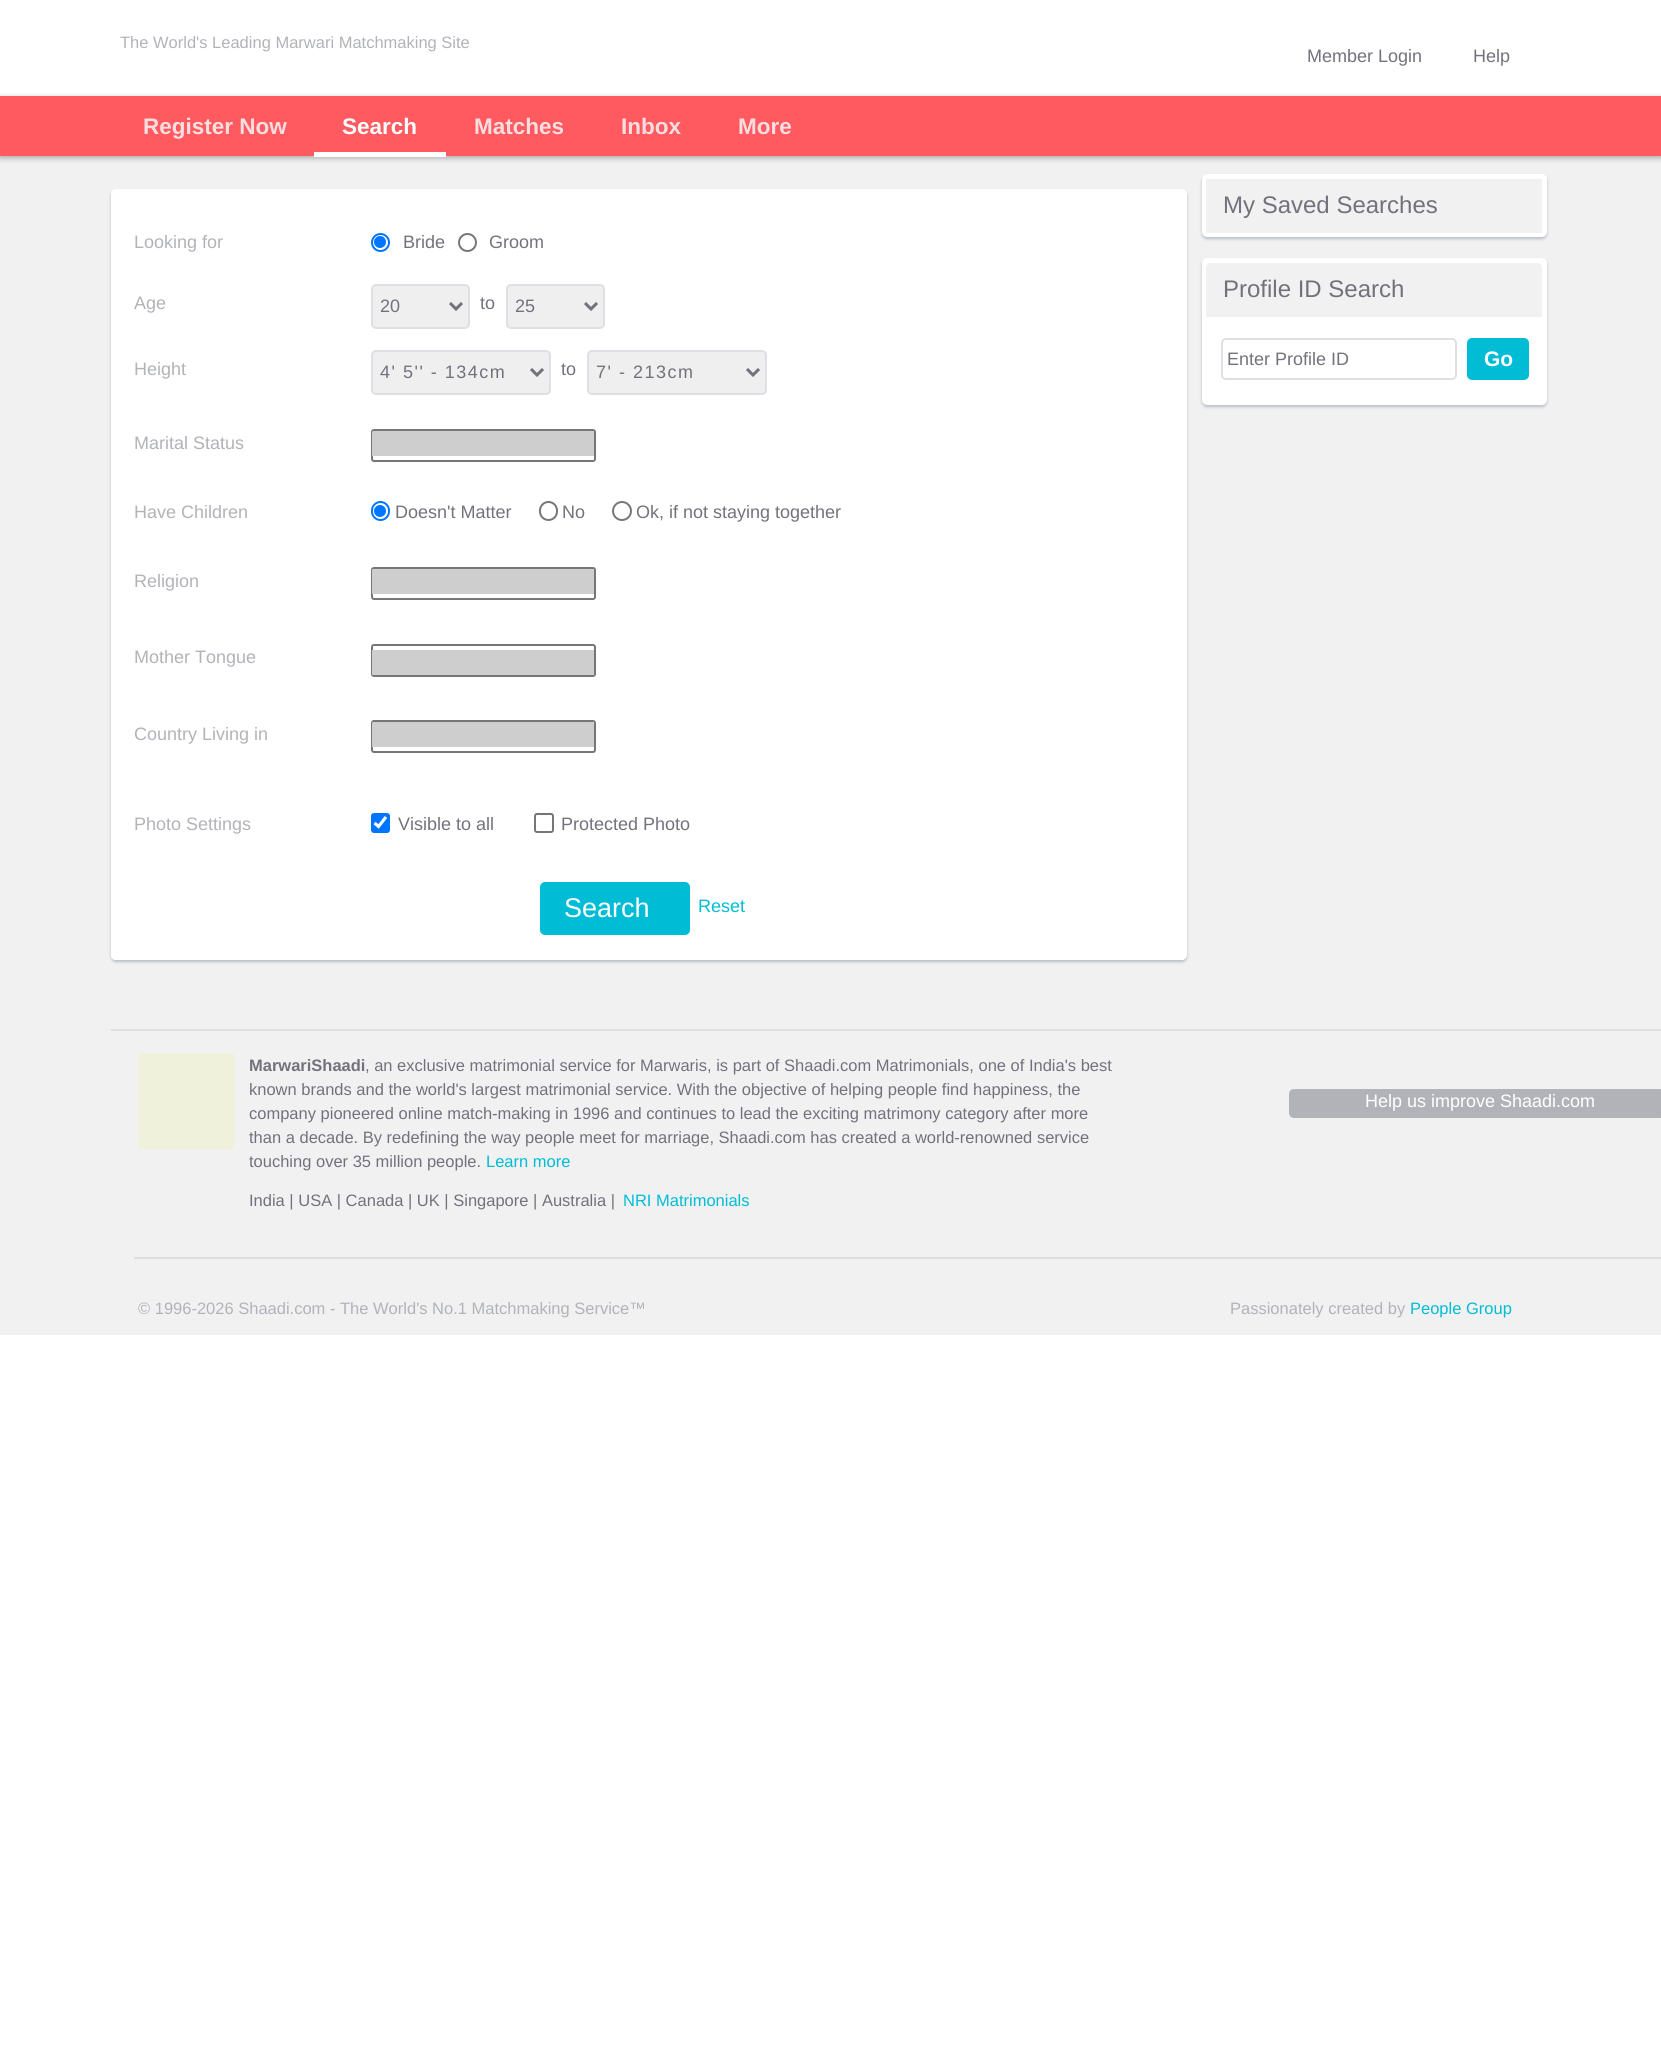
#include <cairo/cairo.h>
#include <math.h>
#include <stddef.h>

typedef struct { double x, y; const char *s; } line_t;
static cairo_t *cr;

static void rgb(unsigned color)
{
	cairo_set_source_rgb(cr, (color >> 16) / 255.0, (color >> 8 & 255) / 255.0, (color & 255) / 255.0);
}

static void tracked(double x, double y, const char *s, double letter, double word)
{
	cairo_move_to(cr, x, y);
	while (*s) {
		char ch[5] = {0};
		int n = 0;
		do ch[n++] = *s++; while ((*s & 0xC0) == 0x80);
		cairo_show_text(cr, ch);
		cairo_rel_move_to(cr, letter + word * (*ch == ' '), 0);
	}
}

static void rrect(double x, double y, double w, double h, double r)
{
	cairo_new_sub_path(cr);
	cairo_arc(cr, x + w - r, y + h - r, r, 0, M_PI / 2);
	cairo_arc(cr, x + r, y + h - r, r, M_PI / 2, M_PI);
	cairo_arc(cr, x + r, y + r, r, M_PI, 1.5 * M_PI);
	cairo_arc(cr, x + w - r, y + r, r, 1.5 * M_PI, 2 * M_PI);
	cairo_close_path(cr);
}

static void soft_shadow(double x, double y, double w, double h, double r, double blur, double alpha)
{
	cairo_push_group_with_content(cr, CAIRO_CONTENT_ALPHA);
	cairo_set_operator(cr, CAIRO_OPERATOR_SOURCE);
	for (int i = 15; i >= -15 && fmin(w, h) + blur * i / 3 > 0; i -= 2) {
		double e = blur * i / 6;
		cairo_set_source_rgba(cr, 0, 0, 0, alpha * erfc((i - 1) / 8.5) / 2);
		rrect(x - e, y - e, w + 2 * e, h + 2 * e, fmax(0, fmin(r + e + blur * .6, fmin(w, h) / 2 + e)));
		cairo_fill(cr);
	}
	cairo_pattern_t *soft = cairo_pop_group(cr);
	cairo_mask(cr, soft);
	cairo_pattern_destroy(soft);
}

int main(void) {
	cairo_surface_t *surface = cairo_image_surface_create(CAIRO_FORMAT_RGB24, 1661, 2062);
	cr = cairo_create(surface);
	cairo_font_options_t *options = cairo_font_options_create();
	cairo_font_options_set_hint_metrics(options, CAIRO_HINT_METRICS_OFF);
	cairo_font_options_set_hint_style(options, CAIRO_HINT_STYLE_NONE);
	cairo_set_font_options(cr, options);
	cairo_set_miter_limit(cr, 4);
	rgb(0xffffff);
	cairo_paint(cr);
	rgb(0xf1f1f2);
	cairo_rectangle(cr, 0, 156, 1661, 1179);
	cairo_fill(cr);
	rgb(0x000000);
	soft_shadow(0, 98, 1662, 60, 0, 3, 0.3);
	rgb(0xff5a60);
	cairo_rectangle(cr, 0, 96, 1661, 60);
	cairo_fill(cr);
	rgb(0xffffff);
	cairo_rectangle(cr, 314, 152, 132, 5);
	cairo_fill(cr);
	rgb(0x2b3b5d);
	soft_shadow(111, 191, 1076, 771, 5, 1.5, 0.29);
	rgb(0xffffff);
	rrect(111, 189, 1076, 771, 5);
	cairo_fill(cr);
	cairo_set_fill_rule(cr, CAIRO_FILL_RULE_EVEN_ODD);
	cairo_new_path(cr);
	cairo_move_to(cr, 116, 189);
	cairo_line_to(cr, 1182, 189);
	cairo_curve_to(cr, 1184, 189, 1186, 191, 1186, 194);
	cairo_line_to(cr, 1186, 956);
	cairo_curve_to(cr, 1186, 958, 1184, 960, 1182, 960);
	cairo_line_to(cr, 116, 960);
	cairo_curve_to(cr, 113, 960, 111, 958, 111, 956);
	cairo_line_to(cr, 111, 194);
	cairo_curve_to(cr, 111, 191, 113, 189, 116, 189);
	cairo_close_path(cr);
	cairo_move_to(cr, 116, 189);
	cairo_line_to(cr, 1182, 189);
	cairo_curve_to(cr, 1184, 189, 1185, 191, 1185, 194);
	cairo_line_to(cr, 1185, 956);
	cairo_curve_to(cr, 1185, 957, 1184, 958, 1182, 958);
	cairo_line_to(cr, 116, 958);
	cairo_curve_to(cr, 114, 958, 112, 957, 112, 956);
	cairo_line_to(cr, 112, 194);
	cairo_curve_to(cr, 112, 191, 114, 189, 116, 189);
	cairo_close_path(cr);
	cairo_fill(cr);
	cairo_arc(cr, 380.5, 242.5, 8.5, 0, 2 * M_PI);
	rgb(0x0075ff);
	cairo_stroke(cr);
	cairo_arc(cr, 380, 242, 6, 0, 2 * M_PI);
	cairo_fill(cr);
	cairo_arc(cr, 467.5, 242.5, 8.5, 0, 2 * M_PI);
	rgb(0x767676);
	cairo_stroke(cr);
	rgb(0xefefef);
	rrect(372, 285, 97, 43, 4);
	cairo_fill_preserve(cr);
	rgb(0xdfe0e3);
	cairo_stroke(cr);
	cairo_new_path(cr);
	cairo_move_to(cr, 450, 303);
	cairo_line_to(cr, 456, 309);
	cairo_line_to(cr, 462, 303);
	rgb(0x72727d);
	cairo_set_line_width(cr, 3);
	cairo_stroke(cr);
	rgb(0xefefef);
	rrect(507, 285, 97, 43, 4);
	cairo_fill_preserve(cr);
	rgb(0xdfe0e3);
	cairo_set_line_width(cr, 2);
	cairo_stroke(cr);
	cairo_new_path(cr);
	cairo_move_to(cr, 585, 303);
	cairo_line_to(cr, 591, 309);
	cairo_line_to(cr, 597, 303);
	rgb(0x72727d);
	cairo_set_line_width(cr, 3);
	cairo_stroke(cr);
	rgb(0xefefef);
	rrect(372, 351, 178, 43, 4);
	cairo_fill_preserve(cr);
	rgb(0xdfe0e3);
	cairo_set_line_width(cr, 2);
	cairo_stroke(cr);
	cairo_new_path(cr);
	cairo_move_to(cr, 531, 369);
	cairo_line_to(cr, 537, 375);
	cairo_line_to(cr, 543, 369);
	rgb(0x72727d);
	cairo_set_line_width(cr, 3);
	cairo_stroke(cr);
	rgb(0xefefef);
	rrect(588, 351, 178, 43, 4);
	cairo_fill_preserve(cr);
	rgb(0xdfe0e3);
	cairo_set_line_width(cr, 2);
	cairo_stroke(cr);
	cairo_new_path(cr);
	cairo_move_to(cr, 747, 369);
	cairo_line_to(cr, 753, 375);
	cairo_line_to(cr, 759, 369);
	rgb(0x72727d);
	cairo_set_line_width(cr, 3);
	cairo_stroke(cr);
	rrect(372, 430, 223, 31, 2);
	rgb(0x767676);
	cairo_set_line_width(cr, 2);
	cairo_stroke(cr);
	rgb(0xcecece);
	cairo_new_path(cr);
	cairo_move_to(cr, 373.5, 431);
	cairo_line_to(cr, 592.5, 431);
	cairo_curve_to(cr, 593.5, 431, 594, 431.5, 594, 432.5);
	cairo_line_to(cr, 594, 456);
	cairo_line_to(cr, 372, 456);
	cairo_line_to(cr, 372, 432.5);
	cairo_curve_to(cr, 372, 431.5, 372.5, 431, 373.5, 431);
	cairo_close_path(cr);
	cairo_fill(cr);
	rrect(372, 502, 17, 18, 8.5);
	rgb(0x0075ff);
	cairo_stroke(cr);
	cairo_arc(cr, 380, 511, 6, 0, 2 * M_PI);
	cairo_fill(cr);
	rrect(540, 502, 17, 18, 8.5);
	rgb(0x767676);
	cairo_stroke(cr);
	cairo_arc(cr, 622, 511, 9, 0, 2 * M_PI);
	cairo_stroke(cr);
	rrect(372, 568, 223, 31, 2);
	cairo_stroke(cr);
	rgb(0xcecece);
	cairo_new_path(cr);
	cairo_move_to(cr, 373.5, 569);
	cairo_line_to(cr, 592.5, 569);
	cairo_curve_to(cr, 593.5, 569, 594, 569.5, 594, 570.5);
	cairo_line_to(cr, 594, 594);
	cairo_line_to(cr, 372, 594);
	cairo_line_to(cr, 372, 570.5);
	cairo_curve_to(cr, 372, 569.5, 372.5, 569, 373.5, 569);
	cairo_close_path(cr);
	cairo_fill(cr);
	rrect(372, 645, 223, 31, 2);
	rgb(0x767676);
	cairo_stroke(cr);
	rgb(0xcecece);
	cairo_new_path(cr);
	cairo_move_to(cr, 372, 650);
	cairo_line_to(cr, 594, 650);
	cairo_line_to(cr, 594, 673.5);
	cairo_curve_to(cr, 594, 674.5, 593.5, 675, 592.5, 675);
	cairo_line_to(cr, 373.5, 675);
	cairo_curve_to(cr, 372.5, 675, 372, 674.5, 372, 673.5);
	cairo_close_path(cr);
	cairo_fill(cr);
	rrect(372, 721, 223, 31, 2);
	rgb(0x767676);
	cairo_stroke(cr);
	rgb(0xcecece);
	cairo_new_path(cr);
	cairo_move_to(cr, 373.5, 722);
	cairo_line_to(cr, 592.5, 722);
	cairo_curve_to(cr, 593.5, 722, 594, 722.5, 594, 723.5);
	cairo_line_to(cr, 594, 747);
	cairo_line_to(cr, 372, 747);
	cairo_line_to(cr, 372, 723.5);
	cairo_curve_to(cr, 372, 722.5, 372.5, 722, 373.5, 722);
	cairo_close_path(cr);
	cairo_fill(cr);
	rgb(0x0075ff);
	rrect(371, 813, 19, 20, 3);
	cairo_fill(cr);
	cairo_new_path(cr);
	cairo_move_to(cr, 374.5, 823);
	cairo_line_to(cr, 378.5, 826.5);
	cairo_line_to(cr, 386, 817);
	rgb(0xffffff);
	cairo_set_line_width(cr, 3.1);
	cairo_stroke(cr);
	rrect(535, 814, 18, 18, 2);
	rgb(0x767676);
	cairo_set_line_width(cr, 2);
	cairo_stroke(cr);
	rgb(0x00bcd5);
	rrect(541, 883, 148, 51, 4);
	cairo_fill_preserve(cr);
	cairo_stroke(cr);
	rgb(0x2b3b5d);
	soft_shadow(1202, 176, 345, 63, 5, 1.5, 0.29);
	rrect(1204.5, 176.5, 340, 58, 2.5);
	rgb(0xffffff);
	cairo_set_line_width(cr, 5);
	cairo_stroke(cr);
	rgb(0xf1f1f2);
	cairo_rectangle(cr, 1206, 179, 336, 54);
	cairo_fill(cr);
	rgb(0x2b3b5d);
	soft_shadow(1202, 260, 345, 147, 5, 1.5, 0.29);
	rgb(0xffffff);
	rrect(1204.5, 260.5, 340, 142, 2.5);
	cairo_fill_preserve(cr);
	cairo_stroke(cr);
	rgb(0xf1f1f2);
	cairo_new_path(cr);
	cairo_move_to(cr, 1211, 263);
	cairo_line_to(cr, 1537, 263);
	cairo_curve_to(cr, 1540, 263, 1542, 265, 1542, 268);
	cairo_line_to(cr, 1542, 317);
	cairo_line_to(cr, 1206, 317);
	cairo_line_to(cr, 1206, 268);
	cairo_curve_to(cr, 1206, 265, 1208, 263, 1211, 263);
	cairo_close_path(cr);
	cairo_fill(cr);
	rrect(1222, 339, 234, 40, 4);
	rgb(0xdfe0e3);
	cairo_set_line_width(cr, 2);
	cairo_stroke(cr);
	rgb(0x00bcd5);
	rrect(1468, 339, 60, 40, 4);
	cairo_fill_preserve(cr);
	cairo_stroke(cr);
	rgb(0xdfdfdf);
	cairo_rectangle(cr, 111, 1029, 1550, 2);
	cairo_fill(cr);
	rgb(0xf0f1db);
	cairo_rectangle(cr, 138, 1053, 96, 96);
	cairo_fill(cr);
	rgb(0xb1b3b9);
	rrect(1289, 1089, 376, 29, 5);
	cairo_fill(cr);
	rgb(0xdddddd);
	cairo_rectangle(cr, 134, 1257, 1527, 2);
	cairo_fill(cr);
	cairo_select_font_face(cr, "Liberation Sans", CAIRO_FONT_SLANT_NORMAL, CAIRO_FONT_WEIGHT_NORMAL);
	cairo_set_font_size(cr, 16.5);
	rgb(0xb1b3b9);
	cairo_move_to(cr, 120, 48);
	cairo_show_text(cr, "The World's Leading Marwari Matchmaking Site");
	cairo_set_font_size(cr, 18);
	rgb(0x72727d);
	cairo_move_to(cr, 1307, 62);
	cairo_show_text(cr, "Member Login");
	cairo_move_to(cr, 1473, 62);
	cairo_show_text(cr, "Help");
	cairo_select_font_face(cr, "Liberation Sans", CAIRO_FONT_SLANT_NORMAL, CAIRO_FONT_WEIGHT_BOLD);
	cairo_set_font_size(cr, 22.5);
	rgb(0xfcdee0);
	cairo_move_to(cr, 143, 134);
	cairo_show_text(cr, "Register Now");
	rgb(0xffffff);
	cairo_move_to(cr, 342, 134);
	cairo_show_text(cr, "Search");
	rgb(0xfcdee0);
	{
		static const line_t items[] = {
			{474, 134, "Matches"},
			{621, 134, "Inbox"},
			{738, 134, "More"},
		};
		for (size_t i = 0; i < sizeof items / sizeof *items; i++) {
			cairo_move_to(cr, items[i].x, items[i].y);
			cairo_show_text(cr, items[i].s);
		}
	}
	cairo_select_font_face(cr, "Liberation Sans", CAIRO_FONT_SLANT_NORMAL, CAIRO_FONT_WEIGHT_NORMAL);
	cairo_set_font_size(cr, 18);
	rgb(0xb1b3b9);
	cairo_move_to(cr, 134, 248);
	cairo_show_text(cr, "Looking for");
	rgb(0x72727d);
	cairo_move_to(cr, 403, 248);
	cairo_show_text(cr, "Bride");
	cairo_move_to(cr, 489, 248);
	cairo_show_text(cr, "Groom");
	rgb(0xb1b3b9);
	cairo_move_to(cr, 134, 309);
	cairo_show_text(cr, "Age");
	rgb(0x72727d);
	{
		static const line_t items[] = {
			{380, 312, "20"},
			{480, 309, "to"},
			{515, 312, "25"},
		};
		for (size_t i = 0; i < sizeof items / sizeof *items; i++) {
			cairo_move_to(cr, items[i].x, items[i].y);
			cairo_show_text(cr, items[i].s);
		}
	}
	rgb(0xb1b3b9);
	cairo_move_to(cr, 134, 375);
	cairo_show_text(cr, "Height");
	rgb(0x72727d);
	tracked(380, 378, "4' 5'' - 134cm", 1.5, 0);
	cairo_move_to(cr, 561, 375);
	cairo_show_text(cr, "to");
	tracked(596, 378, "7' - 213cm", 1.5, 0);
	rgb(0xb1b3b9);
	cairo_move_to(cr, 134, 449);
	cairo_show_text(cr, "Marital Status");
	cairo_move_to(cr, 134, 518);
	cairo_show_text(cr, "Have Children");
	rgb(0x72727d);
	{
		static const line_t items[] = {
			{395, 518, "Doesn't Matter"},
			{562, 518, "No"},
			{636, 518, "Ok, if not staying together"},
		};
		for (size_t i = 0; i < sizeof items / sizeof *items; i++) {
			cairo_move_to(cr, items[i].x, items[i].y);
			cairo_show_text(cr, items[i].s);
		}
	}
	rgb(0xb1b3b9);
	{
		static const line_t items[] = {
			{134, 587, "Religion"},
			{134, 663, "Mother Tongue"},
			{134, 740, "Country Living in"},
			{134, 830, "Photo Settings"},
		};
		for (size_t i = 0; i < sizeof items / sizeof *items; i++) {
			cairo_move_to(cr, items[i].x, items[i].y);
			cairo_show_text(cr, items[i].s);
		}
	}
	rgb(0x72727d);
	cairo_move_to(cr, 398, 830);
	cairo_show_text(cr, "Visible to all");
	cairo_move_to(cr, 561, 830);
	cairo_show_text(cr, "Protected Photo");
	cairo_set_font_size(cr, 27);
	rgb(0xffffff);
	cairo_move_to(cr, 564, 917);
	cairo_show_text(cr, "Search");
	cairo_set_font_size(cr, 18);
	rgb(0x00bcd5);
	cairo_move_to(cr, 698, 912);
	cairo_show_text(cr, "Reset");
	cairo_set_font_size(cr, 24);
	rgb(0x72727d);
	cairo_move_to(cr, 1223, 213);
	cairo_show_text(cr, "My Saved Searches");
	cairo_move_to(cr, 1223, 297);
	cairo_show_text(cr, "Profile ID Search");
	cairo_set_font_size(cr, 18);
	cairo_move_to(cr, 1227, 365);
	cairo_show_text(cr, "Enter Profile ID");
	cairo_select_font_face(cr, "Liberation Sans", CAIRO_FONT_SLANT_NORMAL, CAIRO_FONT_WEIGHT_BOLD);
	cairo_set_font_size(cr, 21);
	rgb(0xffffff);
	cairo_move_to(cr, 1484, 366);
	cairo_show_text(cr, "Go");
	cairo_set_font_size(cr, 16.5);
	rgb(0x72727d);
	cairo_move_to(cr, 249, 1071);
	cairo_show_text(cr, "MarwariShaadi");
	cairo_select_font_face(cr, "Liberation Sans", CAIRO_FONT_SLANT_NORMAL, CAIRO_FONT_WEIGHT_NORMAL);
	{
		static const line_t items[] = {
			{365, 1071, ", an exclusive matrimonial service for Marwaris, is part of Shaadi.com Matrimonials, one of India's best"},
			{249, 1095, "known brands and the world's largest matrimonial service. With the objective of helping people find happiness, the"},
			{249, 1119, "company pioneered online match-making in 1996 and continues to lead the exciting matrimony category after more"},
			{249, 1143, "than a decade. By redefining the way people meet for marriage, Shaadi.com has created a world-renowned service"},
			{249, 1167, "touching over 35 million people."},
		};
		for (size_t i = 0; i < sizeof items / sizeof *items; i++) {
			cairo_move_to(cr, items[i].x, items[i].y);
			cairo_show_text(cr, items[i].s);
		}
	}
	rgb(0x00bcd5);
	cairo_move_to(cr, 486, 1167);
	cairo_show_text(cr, "Learn more");
	rgb(0x72727d);
	cairo_move_to(cr, 249, 1206);
	cairo_show_text(cr, "India | USA | Canada | UK | Singapore | Australia |");
	rgb(0x00bcd5);
	cairo_move_to(cr, 623, 1206);
	cairo_show_text(cr, "NRI Matrimonials");
	cairo_set_font_size(cr, 18);
	rgb(0xffffff);
	cairo_move_to(cr, 1365, 1107);
	cairo_show_text(cr, "Help us improve Shaadi.com");
	cairo_set_font_size(cr, 16.5);
	rgb(0xb1b3b9);
	cairo_move_to(cr, 138, 1314);
	cairo_show_text(cr, "© 1996-2026 Shaadi.com - The World's No.1 Matchmaking Service™");
	cairo_move_to(cr, 1230, 1314);
	cairo_show_text(cr, "Passionately created by");
	rgb(0x00bcd5);
	cairo_move_to(cr, 1410, 1314);
	cairo_show_text(cr, "People Group");
	cairo_surface_write_to_png(surface, "page.png");
	cairo_font_options_destroy(options);
	cairo_destroy(cr);
	cairo_surface_destroy(surface);
	return 0;
}
